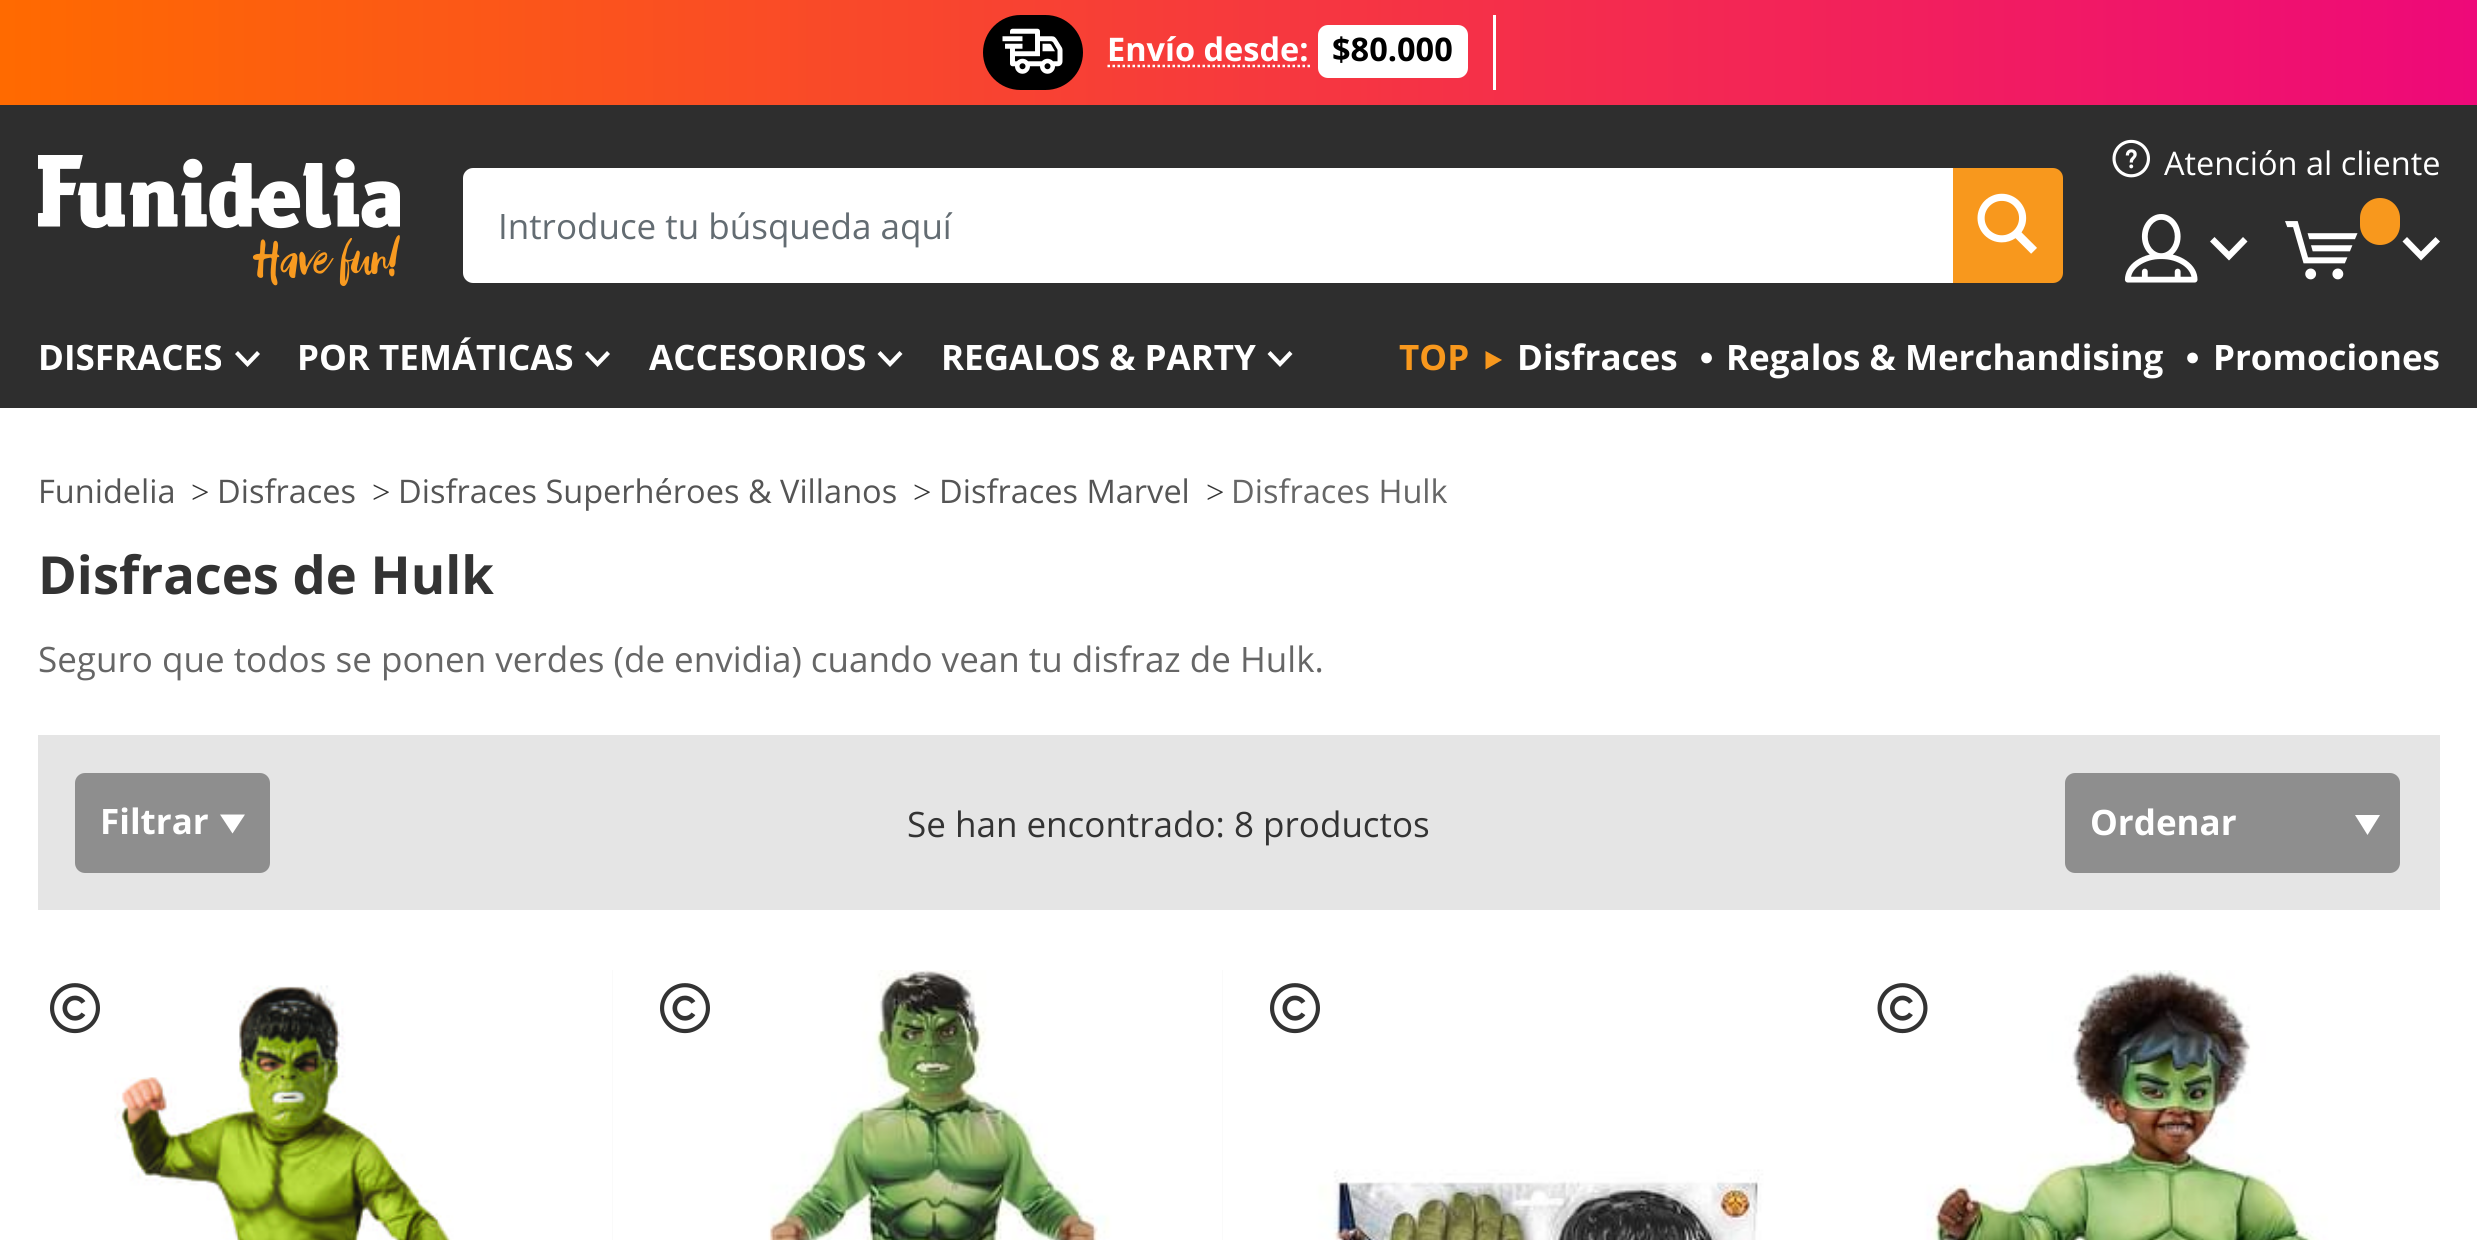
#include <cairo/cairo.h>
#include <math.h>
#include <stddef.h>

typedef struct { double x, y; const char *s; } line_t;
static cairo_t *cr;

static void rgb(unsigned color)
{
	cairo_set_source_rgb(cr, (color >> 16) / 255.0, (color >> 8 & 255) / 255.0, (color & 255) / 255.0);
}

static void rrect(double x, double y, double w, double h, double r)
{
	cairo_new_sub_path(cr);
	cairo_arc(cr, x + w - r, y + h - r, r, 0, M_PI / 2);
	cairo_arc(cr, x + r, y + h - r, r, M_PI / 2, M_PI);
	cairo_arc(cr, x + r, y + r, r, M_PI, 1.5 * M_PI);
	cairo_arc(cr, x + w - r, y + r, r, 1.5 * M_PI, 2 * M_PI);
	cairo_close_path(cr);
}

static void image(const char *path, double x, double y, double w, double h)
{
	cairo_surface_t *image = cairo_image_surface_create_from_png(path);
	cairo_save(cr);
	cairo_set_source_surface(cr, image, x, y);
	cairo_rectangle(cr, x, y, w, h);
	cairo_fill(cr);
	cairo_restore(cr);
	cairo_surface_destroy(image);
}

int main(void) {
	cairo_surface_t *surface = cairo_image_surface_create(CAIRO_FORMAT_RGB24, 2477, 1240);
	cr = cairo_create(surface);
	cairo_font_options_t *options = cairo_font_options_create();
	cairo_font_options_set_hint_metrics(options, CAIRO_HINT_METRICS_OFF);
	cairo_font_options_set_hint_style(options, CAIRO_HINT_STYLE_NONE);
	cairo_set_font_options(cr, options);
	cairo_set_miter_limit(cr, 4);
	cairo_pattern_t *gradient;
	rgb(0xffffff);
	cairo_paint(cr);
	rgb(0x2e2e2e);
	cairo_rectangle(cr, 0, 105, 2477, 303);
	cairo_fill(cr);
	gradient = cairo_pattern_create_linear(0, 53, 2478, 52);
	cairo_pattern_add_color_stop_rgba(gradient, 0, 1, 0.416, 0, 1);
	cairo_pattern_add_color_stop_rgba(gradient, 1, 0.933, 0.035, 0.475, 1);
	cairo_set_source(cr, gradient);
	cairo_pattern_destroy(gradient);
	cairo_rectangle(cr, 0, 0, 2477, 105);
	cairo_fill(cr);
	rgb(0xffffff);
	cairo_rectangle(cr, 1493, 15, 3, 75);
	cairo_fill(cr);
	rgb(0x000000);
	rrect(983, 15, 100, 75, 37.5);
	cairo_fill(cr);
	image("img/1.png", 1002, 28, 61, 46);
	cairo_new_path(cr);
	cairo_move_to(cr, 1107.5, 66);
	cairo_line_to(cr, 1310, 66);
	rgb(0xffffff);
	cairo_set_line_width(cr, 2.5);
	cairo_set_dash(cr, (double[]){2.5, 2.5}, 2, 0);
	cairo_stroke(cr);
	rrect(1318, 25, 150, 53, 10);
	cairo_fill(cr);
	image("img/2.png", 38, 155, 362, 132);
	cairo_new_path(cr);
	cairo_move_to(cr, 473, 170.5);
	cairo_line_to(cr, 1950.5, 170.5);
	cairo_line_to(cr, 1950.5, 280.5);
	cairo_line_to(cr, 473, 280.5);
	cairo_curve_to(cr, 469, 280.5, 465.5, 277, 465.5, 273);
	cairo_line_to(cr, 465.5, 178);
	cairo_curve_to(cr, 465.5, 174, 469, 170.5, 473, 170.5);
	cairo_close_path(cr);
	cairo_fill_preserve(cr);
	cairo_set_line_width(cr, 5);
	cairo_set_dash(cr, NULL, 0, 0);
	cairo_stroke(cr);
	rgb(0xf8981d);
	cairo_new_path(cr);
	cairo_move_to(cr, 1953, 168);
	cairo_line_to(cr, 2053, 168);
	cairo_curve_to(cr, 2058.5, 168, 2063, 172.5, 2063, 178);
	cairo_line_to(cr, 2063, 273);
	cairo_curve_to(cr, 2063, 278.5, 2058.5, 283, 2053, 283);
	cairo_line_to(cr, 1953, 283);
	cairo_close_path(cr);
	cairo_fill(cr);
	image("img/3.png", 1977, 193, 60, 61);
	image("img/4.png", 2112, 139, 38, 39);
	image("img/5.png", 2124, 214, 74, 69);
	rgb(0xffffff);
	cairo_new_path(cr);
	cairo_move_to(cr, 2210, 241.5);
	cairo_line_to(cr, 2214.5, 237);
	cairo_line_to(cr, 2229, 251.5);
	cairo_line_to(cr, 2243, 237);
	cairo_line_to(cr, 2247.5, 241.5);
	cairo_line_to(cr, 2229, 260.5);
	cairo_close_path(cr);
	cairo_fill(cr);
	image("img/6.png", 2285, 221, 73, 59);
	rgb(0xf8981d);
	rrect(2360, 198, 40, 47, 20);
	cairo_fill(cr);
	rgb(0xffffff);
	cairo_new_path(cr);
	cairo_move_to(cr, 2402.5, 241.5);
	cairo_line_to(cr, 2407, 237);
	cairo_line_to(cr, 2421, 251.5);
	cairo_line_to(cr, 2435.5, 237);
	cairo_line_to(cr, 2440, 241.5);
	cairo_line_to(cr, 2421, 260.5);
	cairo_close_path(cr);
	cairo_fill(cr);
	cairo_new_path(cr);
	cairo_move_to(cr, 235, 354);
	cairo_line_to(cr, 238, 351);
	cairo_line_to(cr, 247.5, 361);
	cairo_line_to(cr, 257, 351);
	cairo_line_to(cr, 260, 354);
	cairo_line_to(cr, 247.5, 367);
	cairo_close_path(cr);
	cairo_fill(cr);
	cairo_new_path(cr);
	cairo_move_to(cr, 585, 354);
	cairo_line_to(cr, 588, 351);
	cairo_line_to(cr, 597.5, 361);
	cairo_line_to(cr, 607, 351);
	cairo_line_to(cr, 610, 354);
	cairo_line_to(cr, 597.5, 367);
	cairo_close_path(cr);
	cairo_fill(cr);
	cairo_new_path(cr);
	cairo_move_to(cr, 877.5, 354);
	cairo_line_to(cr, 880.5, 351);
	cairo_line_to(cr, 890, 361);
	cairo_line_to(cr, 899.5, 351);
	cairo_line_to(cr, 902.5, 354);
	cairo_line_to(cr, 890, 367);
	cairo_close_path(cr);
	cairo_fill(cr);
	cairo_new_path(cr);
	cairo_move_to(cr, 1267.5, 354);
	cairo_line_to(cr, 1270.5, 351);
	cairo_line_to(cr, 1280, 361);
	cairo_line_to(cr, 1289.5, 351);
	cairo_line_to(cr, 1292.5, 354);
	cairo_line_to(cr, 1280, 367);
	cairo_close_path(cr);
	cairo_fill(cr);
	rgb(0xf8981d);
	cairo_new_path(cr);
	cairo_move_to(cr, 1485.5, 369.5);
	cairo_line_to(cr, 1485.5, 351);
	cairo_line_to(cr, 1502, 360);
	cairo_close_path(cr);
	cairo_fill(cr);
	rgb(0xe5e5e5);
	cairo_rectangle(cr, 38, 735, 2402, 175);
	cairo_fill(cr);
	rgb(0x8e8e8e);
	rrect(75, 773, 195, 100, 10);
	cairo_fill(cr);
	rgb(0xffffff);
	cairo_new_path(cr);
	cairo_move_to(cr, 232.5, 833.5);
	cairo_line_to(cr, 220, 814.5);
	cairo_line_to(cr, 245, 814.5);
	cairo_close_path(cr);
	cairo_fill(cr);
	rgb(0x8e8e8e);
	rrect(2067.5, 775.5, 330, 95, 7.5);
	cairo_fill_preserve(cr);
	cairo_stroke(cr);
	rgb(0xffffff);
	cairo_new_path(cr);
	cairo_move_to(cr, 2355, 815);
	cairo_line_to(cr, 2380, 815);
	cairo_line_to(cr, 2367.5, 835);
	cairo_close_path(cr);
	cairo_fill(cr);
	rgb(0xf6f6f6);
	cairo_rectangle(cr, 38, 970, 575, 270);
	cairo_fill(cr);
	image("img/7.png", 38, 970, 575, 270);
	image("img/8.png", 50, 983, 50, 51);
	cairo_rectangle(cr, 648, 970, 575, 270);
	cairo_fill(cr);
	image("img/9.png", 648, 970, 575, 270);
	image("img/8.png", 660, 983, 50, 51);
	image("img/10.png", 1258, 970, 572, 270);
	image("img/8.png", 1270, 983, 50, 51);
	image("img/11.png", 1865, 970, 575, 270);
	image("img/12.png", 1877, 983, 51, 51);
	cairo_select_font_face(cr, "Open Sans", CAIRO_FONT_SLANT_NORMAL, CAIRO_FONT_WEIGHT_BOLD);
	cairo_set_font_size(cr, 32.5);
	rgb(0xffffff);
	cairo_move_to(cr, 1107, 61);
	cairo_show_text(cr, "Envío desde:");
	rgb(0x000000);
	cairo_move_to(cr, 1332, 61);
	cairo_show_text(cr, "$80.000");
	cairo_select_font_face(cr, "Open Sans", CAIRO_FONT_SLANT_NORMAL, CAIRO_FONT_WEIGHT_NORMAL);
	cairo_set_font_size(cr, 35);
	rgb(0x636c72);
	cairo_move_to(cr, 498, 239);
	cairo_show_text(cr, "Introduce tu búsqueda aquí");
	cairo_set_font_size(cr, 32.5);
	rgb(0xffffff);
	cairo_move_to(cr, 2164, 175);
	cairo_show_text(cr, "Atención al cliente");
	cairo_select_font_face(cr, "Open Sans", CAIRO_FONT_SLANT_NORMAL, CAIRO_FONT_WEIGHT_BOLD);
	cairo_set_font_size(cr, 35);
	{
		static const line_t items[] = {
			{38, 370, "DISFRACES"},
			{297, 370, "POR TEMÁTICAS"},
			{649, 370, "ACCESORIOS"},
			{941, 370, "REGALOS & PARTY"},
		};
		for (size_t i = 0; i < sizeof items / sizeof *items; i++) {
			cairo_move_to(cr, items[i].x, items[i].y);
			cairo_show_text(cr, items[i].s);
		}
	}
	rgb(0xf8981d);
	cairo_move_to(cr, 1399, 370);
	cairo_show_text(cr, "TOP");
	rgb(0xffffff);
	cairo_move_to(cr, 1517, 370);
	cairo_show_text(cr, "Disfraces");
	cairo_select_font_face(cr, "Liberation Sans", CAIRO_FONT_SLANT_NORMAL, CAIRO_FONT_WEIGHT_NORMAL);
	cairo_set_font_size(cr, 25);
	cairo_move_to(cr, 1699, 365);
	cairo_show_text(cr, "●");
	cairo_select_font_face(cr, "Open Sans", CAIRO_FONT_SLANT_NORMAL, CAIRO_FONT_WEIGHT_BOLD);
	cairo_set_font_size(cr, 35);
	cairo_move_to(cr, 1726, 370);
	cairo_show_text(cr, "Regalos & Merchandising");
	cairo_select_font_face(cr, "Liberation Sans", CAIRO_FONT_SLANT_NORMAL, CAIRO_FONT_WEIGHT_NORMAL);
	cairo_set_font_size(cr, 25);
	cairo_move_to(cr, 2185, 365);
	cairo_show_text(cr, "●");
	cairo_select_font_face(cr, "Open Sans", CAIRO_FONT_SLANT_NORMAL, CAIRO_FONT_WEIGHT_BOLD);
	cairo_set_font_size(cr, 35);
	cairo_move_to(cr, 2213, 370);
	cairo_show_text(cr, "Promociones");
	cairo_select_font_face(cr, "Open Sans", CAIRO_FONT_SLANT_NORMAL, CAIRO_FONT_WEIGHT_NORMAL);
	cairo_set_font_size(cr, 32.5);
	rgb(0x555555);
	cairo_move_to(cr, 38, 503);
	cairo_show_text(cr, "Funidelia");
	cairo_select_font_face(cr, "Liberation Serif", CAIRO_FONT_SLANT_NORMAL, CAIRO_FONT_WEIGHT_NORMAL);
	rgb(0x333333);
	cairo_move_to(cr, 191, 503);
	cairo_show_text(cr, ">");
	cairo_select_font_face(cr, "Open Sans", CAIRO_FONT_SLANT_NORMAL, CAIRO_FONT_WEIGHT_NORMAL);
	rgb(0x555555);
	cairo_move_to(cr, 217, 503);
	cairo_show_text(cr, "Disfraces");
	cairo_select_font_face(cr, "Liberation Serif", CAIRO_FONT_SLANT_NORMAL, CAIRO_FONT_WEIGHT_NORMAL);
	rgb(0x333333);
	cairo_move_to(cr, 372, 503);
	cairo_show_text(cr, ">");
	cairo_select_font_face(cr, "Open Sans", CAIRO_FONT_SLANT_NORMAL, CAIRO_FONT_WEIGHT_NORMAL);
	rgb(0x555555);
	cairo_move_to(cr, 398, 503);
	cairo_show_text(cr, "Disfraces Superhéroes & Villanos");
	cairo_select_font_face(cr, "Liberation Serif", CAIRO_FONT_SLANT_NORMAL, CAIRO_FONT_WEIGHT_NORMAL);
	rgb(0x333333);
	cairo_move_to(cr, 913, 503);
	cairo_show_text(cr, ">");
	cairo_select_font_face(cr, "Open Sans", CAIRO_FONT_SLANT_NORMAL, CAIRO_FONT_WEIGHT_NORMAL);
	rgb(0x555555);
	cairo_move_to(cr, 939, 503);
	cairo_show_text(cr, "Disfraces Marvel");
	cairo_select_font_face(cr, "Liberation Serif", CAIRO_FONT_SLANT_NORMAL, CAIRO_FONT_WEIGHT_NORMAL);
	rgb(0x333333);
	cairo_move_to(cr, 1206, 503);
	cairo_show_text(cr, ">");
	cairo_select_font_face(cr, "Open Sans", CAIRO_FONT_SLANT_NORMAL, CAIRO_FONT_WEIGHT_NORMAL);
	rgb(0x666666);
	cairo_move_to(cr, 1231, 503);
	cairo_show_text(cr, "Disfraces Hulk");
	cairo_select_font_face(cr, "Open Sans", CAIRO_FONT_SLANT_NORMAL, CAIRO_FONT_WEIGHT_BOLD);
	cairo_set_font_size(cr, 52.5);
	rgb(0x333333);
	cairo_move_to(cr, 38, 594);
	cairo_show_text(cr, "Disfraces de Hulk");
	cairo_select_font_face(cr, "Open Sans", CAIRO_FONT_SLANT_NORMAL, CAIRO_FONT_WEIGHT_NORMAL);
	cairo_set_font_size(cr, 35);
	rgb(0x666666);
	cairo_move_to(cr, 38, 672);
	cairo_show_text(cr, "Seguro que todos se ponen verdes (de envidia) cuando vean tu disfraz de Hulk.");
	cairo_select_font_face(cr, "Open Sans", CAIRO_FONT_SLANT_NORMAL, CAIRO_FONT_WEIGHT_BOLD);
	rgb(0xffffff);
	cairo_move_to(cr, 100, 834);
	cairo_show_text(cr, "Filtrar");
	cairo_select_font_face(cr, "Open Sans", CAIRO_FONT_SLANT_NORMAL, CAIRO_FONT_WEIGHT_NORMAL);
	rgb(0x333333);
	cairo_move_to(cr, 907, 837);
	cairo_show_text(cr, "Se han encontrado: 8 productos");
	cairo_select_font_face(cr, "Open Sans", CAIRO_FONT_SLANT_NORMAL, CAIRO_FONT_WEIGHT_BOLD);
	rgb(0xffffff);
	cairo_move_to(cr, 2090, 835);
	cairo_show_text(cr, "Ordenar");
	cairo_surface_write_to_png(surface, "page.png");
	cairo_font_options_destroy(options);
	cairo_destroy(cr);
	cairo_surface_destroy(surface);
	return 0;
}
